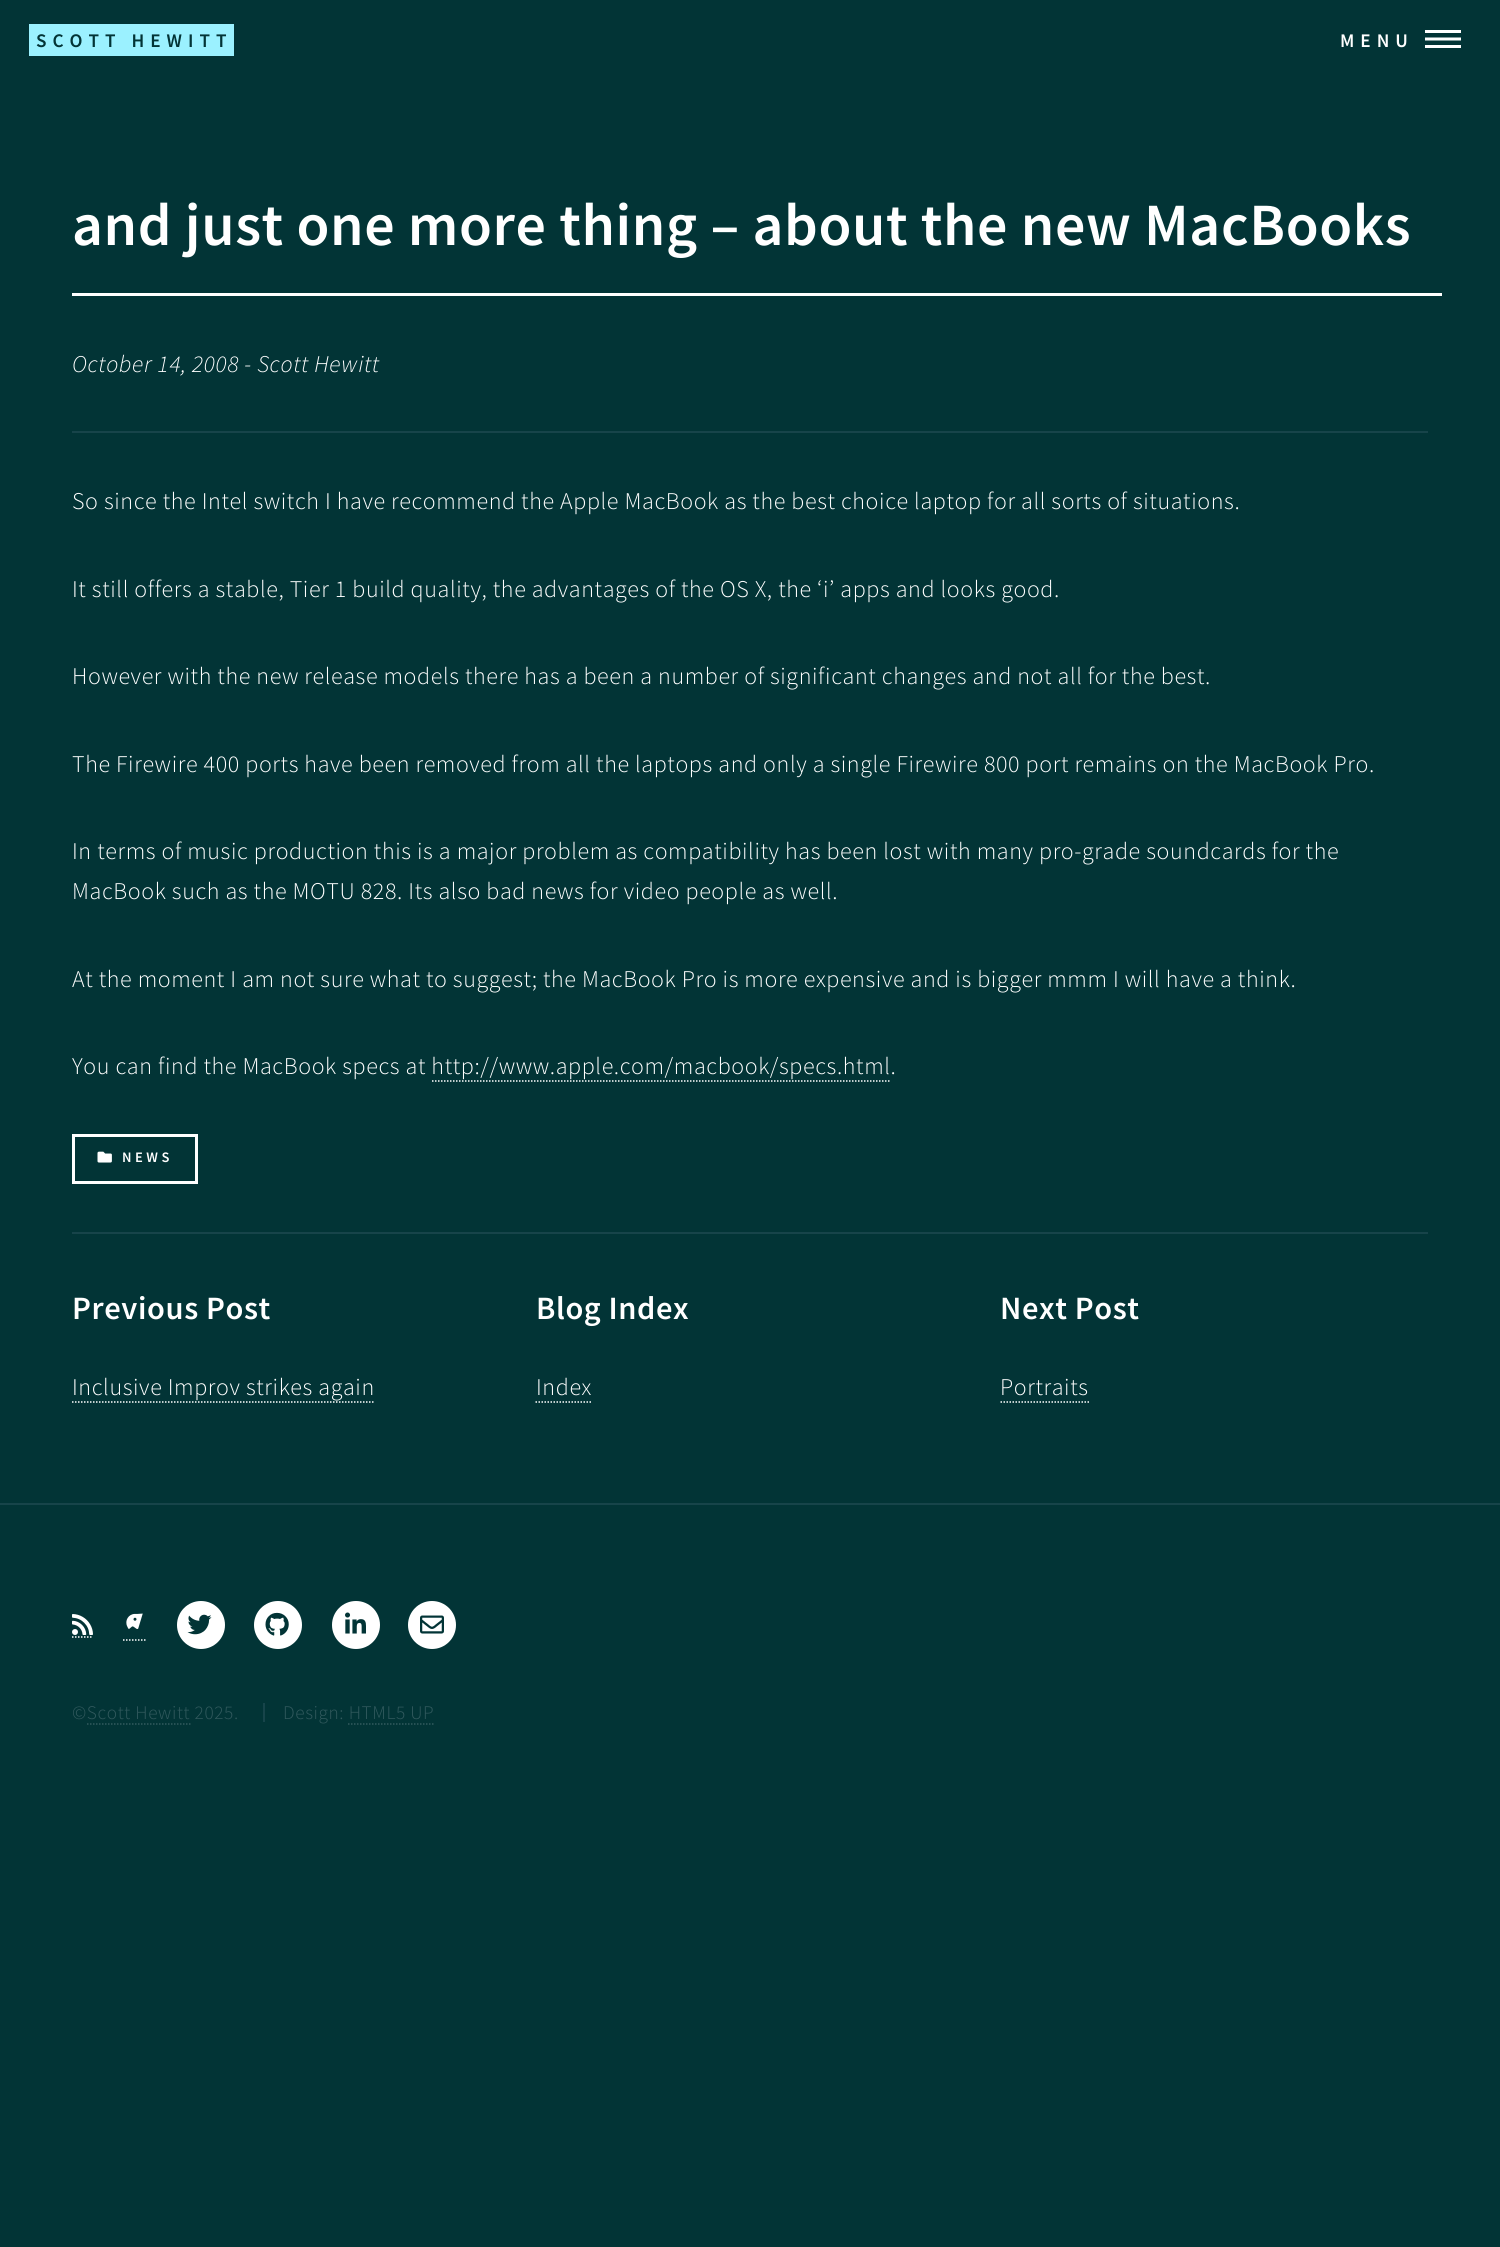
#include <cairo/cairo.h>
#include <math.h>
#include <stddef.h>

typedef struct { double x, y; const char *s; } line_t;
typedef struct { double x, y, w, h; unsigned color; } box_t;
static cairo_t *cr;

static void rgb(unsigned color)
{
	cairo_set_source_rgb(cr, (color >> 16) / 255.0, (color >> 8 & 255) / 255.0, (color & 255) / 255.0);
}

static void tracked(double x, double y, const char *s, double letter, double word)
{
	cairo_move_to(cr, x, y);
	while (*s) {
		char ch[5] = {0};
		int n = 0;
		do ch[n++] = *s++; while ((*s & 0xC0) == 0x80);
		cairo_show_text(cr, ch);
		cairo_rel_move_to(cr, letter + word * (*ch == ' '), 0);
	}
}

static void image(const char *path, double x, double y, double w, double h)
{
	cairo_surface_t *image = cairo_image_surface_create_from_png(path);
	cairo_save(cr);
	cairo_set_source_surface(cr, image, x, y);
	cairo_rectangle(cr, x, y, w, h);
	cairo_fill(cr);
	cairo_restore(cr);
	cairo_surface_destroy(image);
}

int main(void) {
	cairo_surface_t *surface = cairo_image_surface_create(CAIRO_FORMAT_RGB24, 1500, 2247);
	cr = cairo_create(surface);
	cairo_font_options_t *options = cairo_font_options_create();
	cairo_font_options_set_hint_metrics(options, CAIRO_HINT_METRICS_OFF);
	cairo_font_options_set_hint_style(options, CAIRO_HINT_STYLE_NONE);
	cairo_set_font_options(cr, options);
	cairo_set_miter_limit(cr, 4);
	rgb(0x023436);
	cairo_paint(cr);
	{
		static const box_t items[] = {
			{29, 24, 205, 32, 0x9bf1ff},
			{1425, 30, 36, 3, 0xffffff},
			{1425, 45, 36, 3, 0xffffff},
		};
		for (size_t i = 0; i < sizeof items / sizeof *items; i++) {
			rgb(items[i].color);
			cairo_rectangle(cr, items[i].x, items[i].y, items[i].w, items[i].h);
			cairo_fill(cr);
		}
	}
	cairo_new_path(cr);
	cairo_move_to(cr, 1425, 39);
	cairo_line_to(cr, 1461, 39);
	cairo_set_line_width(cr, 3);
	cairo_stroke(cr);
	{
		static const box_t items[] = {
			{0, 1503, 1500, 2, 0x17444a},
			{72, 293, 1370, 3, 0xffffff},
			{72, 431, 1356, 2, 0x17444a},
		};
		for (size_t i = 0; i < sizeof items / sizeof *items; i++) {
			rgb(items[i].color);
			cairo_rectangle(cr, items[i].x, items[i].y, items[i].w, items[i].h);
			cairo_fill(cr);
		}
	}
	cairo_new_path(cr);
	cairo_move_to(cr, 432, 1081);
	cairo_line_to(cr, 891, 1081);
	rgb(0xffffff);
	cairo_set_line_width(cr, 1.5);
	cairo_set_dash(cr, (double[]){1.5, 1.5}, 2, 0);
	cairo_stroke(cr);
	cairo_rectangle(cr, 73.5, 1135.5, 123, 47);
	cairo_set_line_width(cr, 3);
	cairo_set_dash(cr, NULL, 0, 0);
	cairo_stroke(cr);
	image("img/1.png", 97, 1151, 15, 12);
	rgb(0x17444a);
	cairo_rectangle(cr, 72, 1232, 1356, 2);
	cairo_fill(cr);
	cairo_new_path(cr);
	cairo_move_to(cr, 72, 1402);
	cairo_line_to(cr, 375, 1402);
	rgb(0xffffff);
	cairo_set_line_width(cr, 1.5);
	cairo_set_dash(cr, (double[]){1.5, 1.5}, 2, 0);
	cairo_stroke(cr);
	cairo_new_path(cr);
	cairo_move_to(cr, 535.5, 1402);
	cairo_line_to(cr, 592.5, 1402);
	cairo_stroke(cr);
	cairo_new_path(cr);
	cairo_move_to(cr, 1000.5, 1402);
	cairo_line_to(cr, 1089, 1402);
	cairo_stroke(cr);
	cairo_new_path(cr);
	cairo_move_to(cr, 72, 1637);
	cairo_line_to(cr, 93, 1637);
	cairo_stroke(cr);
	image("img/2.png", 72, 1614, 21, 21);
	image("img/3.png", 126, 1613, 17, 16);
	cairo_new_path(cr);
	cairo_move_to(cr, 123, 1640);
	cairo_line_to(cr, 147, 1640);
	cairo_stroke(cr);
	cairo_arc(cr, 201, 1625, 24, 0, 2 * M_PI);
	cairo_fill(cr);
	image("img/4.png", 187, 1614, 25, 21);
	cairo_arc(cr, 278, 1625, 24, 0, 2 * M_PI);
	cairo_fill(cr);
	image("img/5.png", 265, 1612, 24, 24);
	cairo_arc(cr, 356, 1625, 24, 0, 2 * M_PI);
	cairo_fill(cr);
	image("img/6.png", 345, 1612, 21, 22);
	cairo_arc(cr, 432, 1625, 24, 0, 2 * M_PI);
	cairo_fill(cr);
	image("img/7.png", 420, 1615, 24, 19);
	cairo_new_path(cr);
	cairo_move_to(cr, 87, 1724);
	cairo_line_to(cr, 190.5, 1724);
	rgb(0x325a5e);
	cairo_stroke(cr);
	rgb(0x17444a);
	cairo_rectangle(cr, 263, 1703, 2, 19);
	cairo_fill(cr);
	cairo_new_path(cr);
	cairo_move_to(cr, 348, 1724);
	cairo_line_to(cr, 433.5, 1724);
	rgb(0x325a5e);
	cairo_stroke(cr);
	cairo_select_font_face(cr, "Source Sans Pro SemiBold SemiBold", CAIRO_FONT_SLANT_NORMAL, CAIRO_FONT_WEIGHT_NORMAL);
	cairo_set_font_size(cr, 19.25);
	rgb(0x023436);
	tracked(36, 47, "SCOTT HEWITT", 6, 0);
	rgb(0xffffff);
	tracked(1340, 47, "MENU", 6, 0);
	cairo_set_font_size(cr, 60);
	tracked(72, 245, "and just one more thing – about the new MacBooks", 0.6, 0);
	cairo_select_font_face(cr, "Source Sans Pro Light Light", CAIRO_FONT_SLANT_ITALIC, CAIRO_FONT_WEIGHT_NORMAL);
	cairo_set_font_size(cr, 24);
	tracked(72, 372, "October 14, 2008 - Scott Hewitt", 0.6, 0);
	cairo_select_font_face(cr, "Source Sans Pro Light Light", CAIRO_FONT_SLANT_NORMAL, CAIRO_FONT_WEIGHT_NORMAL);
	{
		static const line_t items[] = {
			{72, 509, "So since the Intel switch I have recommend the Apple MacBook as the best choice laptop for all sorts of situations."},
			{72, 597, "It still offers a stable, Tier 1 build quality, the advantages of the OS X, the ‘i’ apps and looks good."},
			{72, 684, "However with the new release models there has a been a number of significant changes and not all for the best."},
			{72, 772, "The Firewire 400 ports have been removed from all the laptops and only a single Firewire 800 port remains on the MacBook Pro."},
			{72, 859, "In terms of music production this is a major problem as compatibility has been lost with many pro-grade soundcards for the"},
			{72, 899, "MacBook such as the MOTU 828. Its also bad news for video people as well."},
			{72, 987, "At the moment I am not sure what to suggest; the MacBook Pro is more expensive and is bigger mmm I will have a think."},
			{72, 1074, "You can find the MacBook specs at http://www.apple.com/macbook/specs.html."},
		};
		for (size_t i = 0; i < sizeof items / sizeof *items; i++) {
			tracked(items[i].x, items[i].y, items[i].s, 0.6, 0);
		}
	}
	cairo_select_font_face(cr, "Source Sans Pro SemiBold SemiBold", CAIRO_FONT_SLANT_NORMAL, CAIRO_FONT_WEIGHT_NORMAL);
	cairo_set_font_size(cr, 14.5);
	tracked(122, 1162, "NEWS", 3.5, 0);
	cairo_set_font_size(cr, 32.5);
	tracked(72, 1319, "Previous Post", 0.6, 0);
	cairo_select_font_face(cr, "Source Sans Pro Light Light", CAIRO_FONT_SLANT_NORMAL, CAIRO_FONT_WEIGHT_NORMAL);
	cairo_set_font_size(cr, 24);
	tracked(72, 1395, "Inclusive Improv strikes again", 0.6, 0);
	cairo_select_font_face(cr, "Source Sans Pro SemiBold SemiBold", CAIRO_FONT_SLANT_NORMAL, CAIRO_FONT_WEIGHT_NORMAL);
	cairo_set_font_size(cr, 32.5);
	tracked(536, 1319, "Blog Index", 0.6, 0);
	cairo_select_font_face(cr, "Source Sans Pro Light Light", CAIRO_FONT_SLANT_NORMAL, CAIRO_FONT_WEIGHT_NORMAL);
	cairo_set_font_size(cr, 24);
	tracked(536, 1395, "Index", 0.6, 0);
	cairo_select_font_face(cr, "Source Sans Pro SemiBold SemiBold", CAIRO_FONT_SLANT_NORMAL, CAIRO_FONT_WEIGHT_NORMAL);
	cairo_set_font_size(cr, 32.5);
	tracked(1000, 1319, "Next Post", 0.6, 0);
	cairo_select_font_face(cr, "Source Sans Pro Light Light", CAIRO_FONT_SLANT_NORMAL, CAIRO_FONT_WEIGHT_NORMAL);
	cairo_set_font_size(cr, 24);
	tracked(1000, 1395, "Portraits", 0.6, 0);
	cairo_set_font_size(cr, 19.25);
	rgb(0x325a5e);
	tracked(72, 1719, "©Scott Hewitt 2025.", 0.6, 0);
	tracked(283, 1719, "Design: HTML5 UP", 0.6, 0);
	cairo_surface_write_to_png(surface, "page.png");
	cairo_font_options_destroy(options);
	cairo_destroy(cr);
	cairo_surface_destroy(surface);
	return 0;
}
